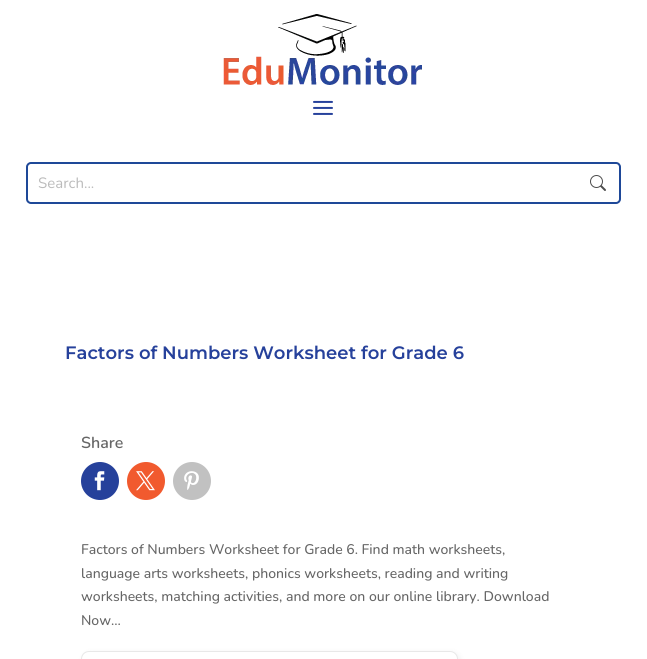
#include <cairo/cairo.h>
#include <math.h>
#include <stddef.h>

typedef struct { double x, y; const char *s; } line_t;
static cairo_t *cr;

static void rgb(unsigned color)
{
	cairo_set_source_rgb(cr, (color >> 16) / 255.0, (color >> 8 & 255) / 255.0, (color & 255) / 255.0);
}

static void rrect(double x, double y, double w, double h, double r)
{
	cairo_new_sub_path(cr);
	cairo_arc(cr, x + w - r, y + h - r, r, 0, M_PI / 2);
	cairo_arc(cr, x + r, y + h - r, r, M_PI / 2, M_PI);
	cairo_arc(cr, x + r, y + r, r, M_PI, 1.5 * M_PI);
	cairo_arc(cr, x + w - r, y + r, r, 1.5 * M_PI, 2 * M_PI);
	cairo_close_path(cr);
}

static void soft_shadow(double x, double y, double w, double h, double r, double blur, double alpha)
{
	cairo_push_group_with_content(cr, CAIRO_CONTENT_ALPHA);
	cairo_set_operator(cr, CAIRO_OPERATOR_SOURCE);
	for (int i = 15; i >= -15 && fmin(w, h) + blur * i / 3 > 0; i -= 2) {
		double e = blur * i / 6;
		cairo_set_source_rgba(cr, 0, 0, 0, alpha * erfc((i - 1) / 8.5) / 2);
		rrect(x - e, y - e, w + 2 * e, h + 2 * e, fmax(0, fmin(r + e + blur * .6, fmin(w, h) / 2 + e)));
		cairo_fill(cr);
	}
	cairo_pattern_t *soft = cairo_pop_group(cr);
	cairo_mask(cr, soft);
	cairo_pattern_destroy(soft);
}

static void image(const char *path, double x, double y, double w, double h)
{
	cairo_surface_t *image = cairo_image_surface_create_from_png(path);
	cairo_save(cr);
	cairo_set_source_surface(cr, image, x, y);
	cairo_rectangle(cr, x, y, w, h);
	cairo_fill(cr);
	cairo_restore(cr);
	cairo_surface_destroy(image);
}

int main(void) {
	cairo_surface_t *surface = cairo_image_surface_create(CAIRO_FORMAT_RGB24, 647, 659);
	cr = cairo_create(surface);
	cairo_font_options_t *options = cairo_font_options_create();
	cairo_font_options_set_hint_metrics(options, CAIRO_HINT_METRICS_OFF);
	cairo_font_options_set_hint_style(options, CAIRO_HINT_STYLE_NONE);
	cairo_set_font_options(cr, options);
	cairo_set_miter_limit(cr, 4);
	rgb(0xffffff);
	cairo_paint(cr);
	image("img/1.png", 223, 14, 199, 71);
	image("img/2.png", 313, 100, 20, 15);
	rrect(27, 163, 593, 40, 4);
	rgb(0x1e4898);
	cairo_stroke(cr);
	image("img/3.png", 590, 175, 16, 16);
	rgb(0x26419b);
	cairo_arc(cr, 100, 481, 19, 0, 2 * M_PI);
	cairo_fill(cr);
	image("img/4.png", 94, 471, 11, 20);
	rgb(0xf15a2e);
	cairo_arc(cr, 146, 481, 19, 0, 2 * M_PI);
	cairo_fill(cr);
	image("img/5.png", 136, 471, 19, 20);
	rgb(0xc1c1c1);
	cairo_arc(cr, 192, 481, 19, 0, 2 * M_PI);
	cairo_fill(cr);
	image("img/6.png", 184, 471, 15, 19);
	rgb(0x000000);
	soft_shadow(83, 653, 377, 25, 8, 3.5, 0.07);
	rgb(0xffffff);
	rrect(81.5, 651.5, 376, 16, 7.5);
	cairo_fill_preserve(cr);
	rgb(0xe8e8e8);
	cairo_set_line_width(cr, 1);
	cairo_stroke(cr);
	cairo_select_font_face(cr, "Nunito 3 ExtraLight", CAIRO_FONT_SLANT_NORMAL, CAIRO_FONT_WEIGHT_NORMAL);
	cairo_set_font_size(cr, 15);
	rgb(0xbbbbbb);
	cairo_move_to(cr, 38, 188);
	cairo_show_text(cr, "Search...");
	cairo_select_font_face(cr, "Montserrat Thin", CAIRO_FONT_SLANT_NORMAL, CAIRO_FONT_WEIGHT_NORMAL);
	cairo_set_font_size(cr, 18);
	rgb(0x26419b);
	cairo_move_to(cr, 65, 359);
	cairo_show_text(cr, "Factors of Numbers Worksheet for Grade 6");
	cairo_select_font_face(cr, "Nunito ExtraLight", CAIRO_FONT_SLANT_NORMAL, CAIRO_FONT_WEIGHT_NORMAL);
	cairo_set_font_size(cr, 16);
	rgb(0x666666);
	cairo_move_to(cr, 81, 448);
	cairo_show_text(cr, "Share");
	cairo_select_font_face(cr, "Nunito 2 ExtraLight", CAIRO_FONT_SLANT_NORMAL, CAIRO_FONT_WEIGHT_NORMAL);
	cairo_set_font_size(cr, 14);
	{
		static const line_t items[] = {
			{81, 554, "Factors of Numbers Worksheet for Grade 6. Find math worksheets,"},
			{81, 578, "language arts worksheets, phonics worksheets, reading and writing"},
			{81, 601, "worksheets, matching activities, and more on our online library. Download"},
			{81, 625, "Now…"},
		};
		for (size_t i = 0; i < sizeof items / sizeof *items; i++) {
			cairo_move_to(cr, items[i].x, items[i].y);
			cairo_show_text(cr, items[i].s);
		}
	}
	cairo_surface_write_to_png(surface, "page.png");
	cairo_font_options_destroy(options);
	cairo_destroy(cr);
	cairo_surface_destroy(surface);
	return 0;
}
